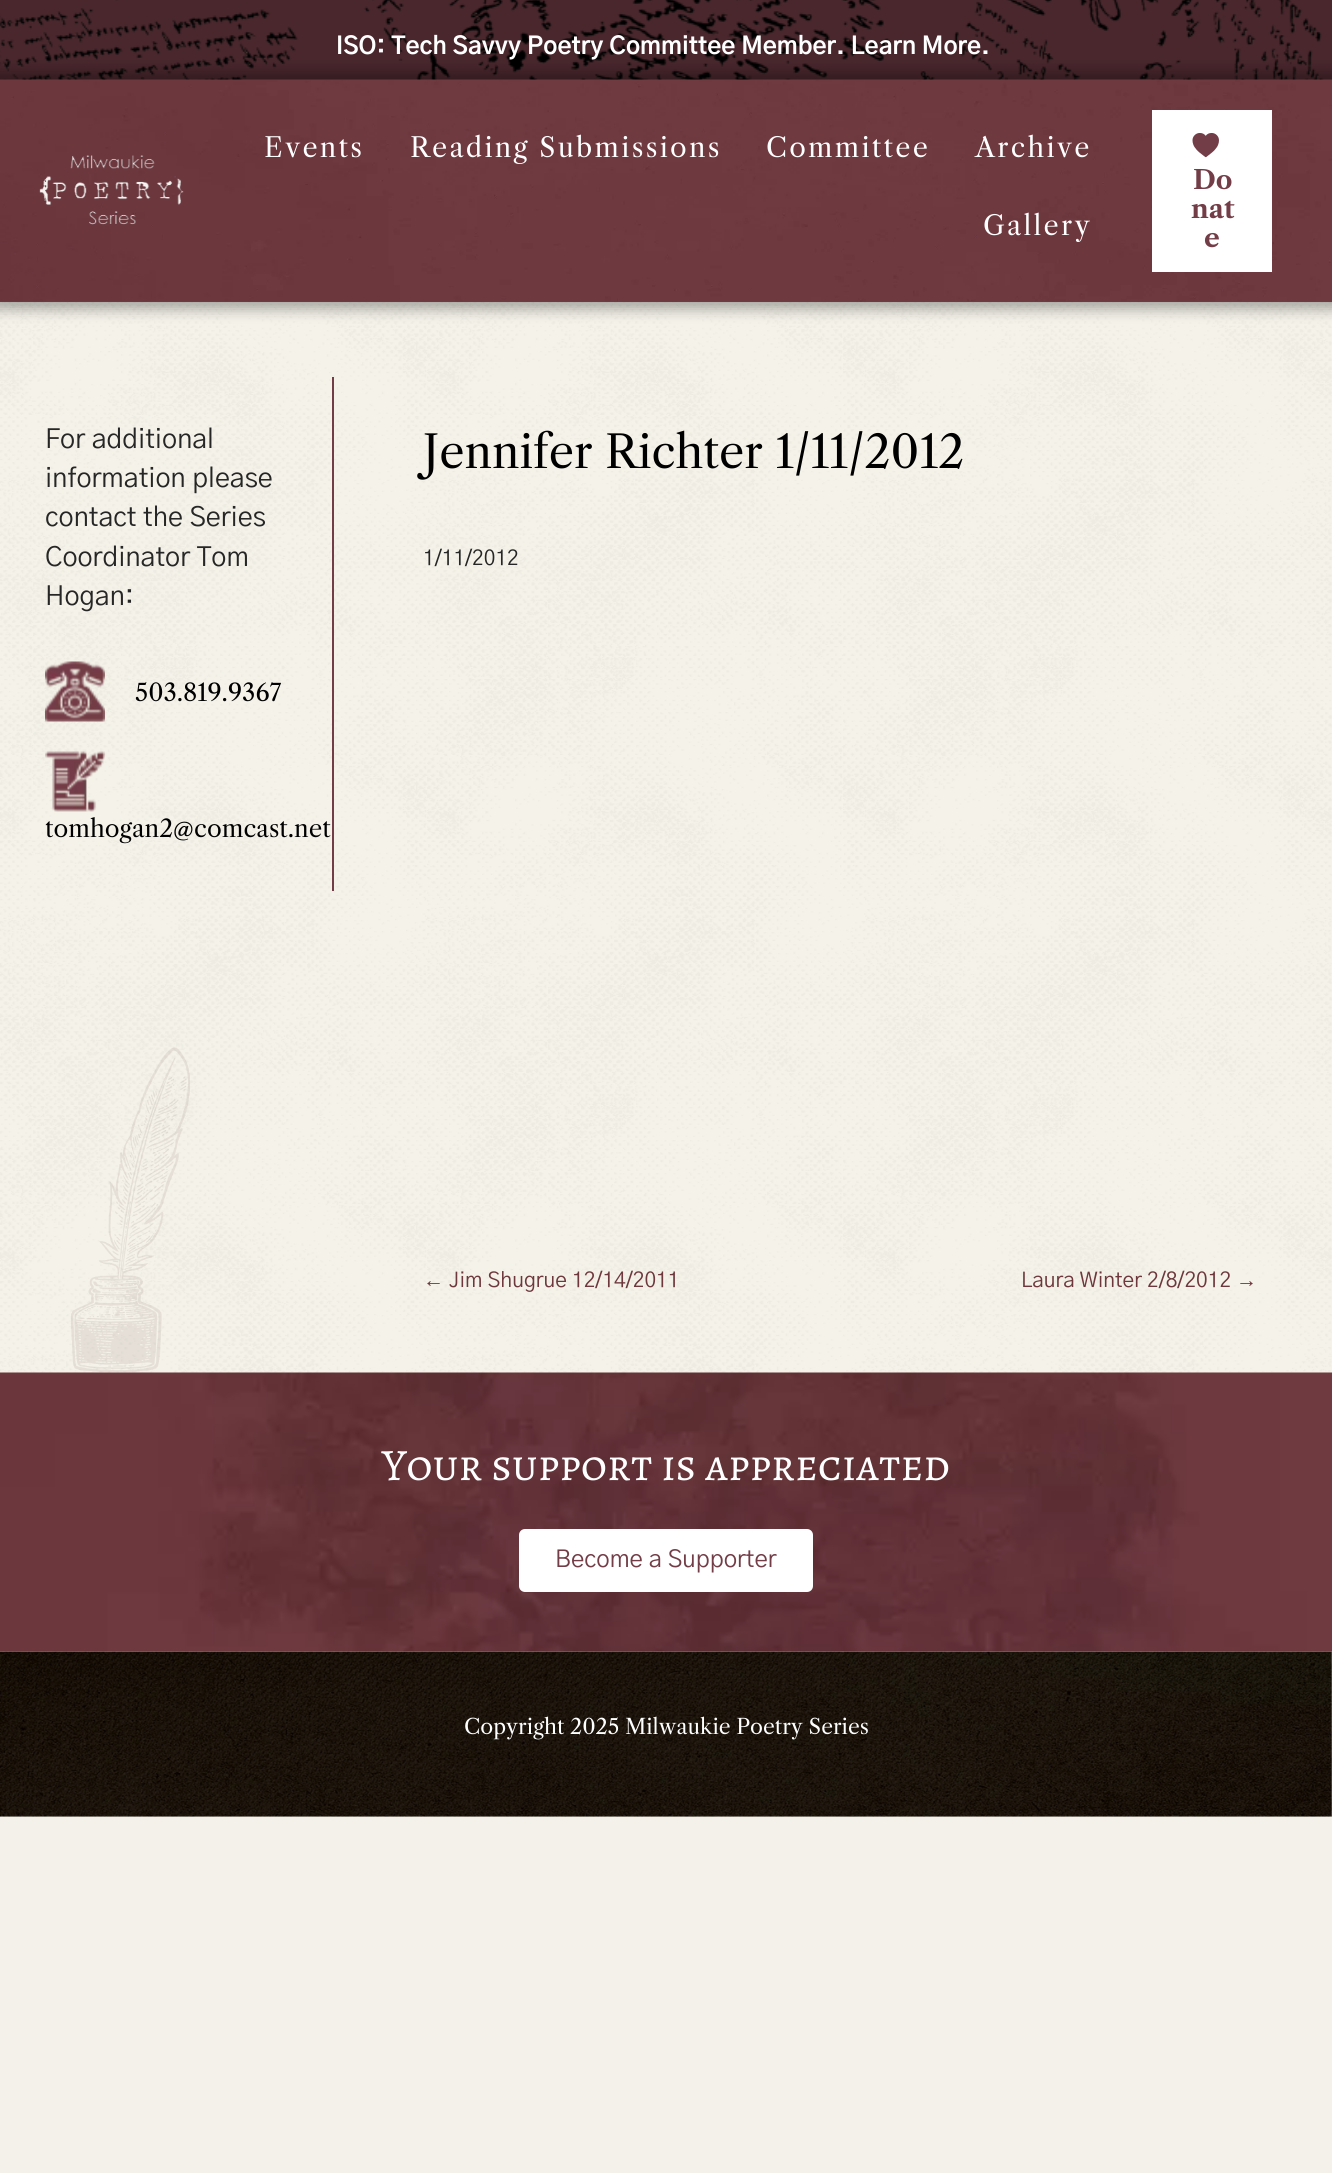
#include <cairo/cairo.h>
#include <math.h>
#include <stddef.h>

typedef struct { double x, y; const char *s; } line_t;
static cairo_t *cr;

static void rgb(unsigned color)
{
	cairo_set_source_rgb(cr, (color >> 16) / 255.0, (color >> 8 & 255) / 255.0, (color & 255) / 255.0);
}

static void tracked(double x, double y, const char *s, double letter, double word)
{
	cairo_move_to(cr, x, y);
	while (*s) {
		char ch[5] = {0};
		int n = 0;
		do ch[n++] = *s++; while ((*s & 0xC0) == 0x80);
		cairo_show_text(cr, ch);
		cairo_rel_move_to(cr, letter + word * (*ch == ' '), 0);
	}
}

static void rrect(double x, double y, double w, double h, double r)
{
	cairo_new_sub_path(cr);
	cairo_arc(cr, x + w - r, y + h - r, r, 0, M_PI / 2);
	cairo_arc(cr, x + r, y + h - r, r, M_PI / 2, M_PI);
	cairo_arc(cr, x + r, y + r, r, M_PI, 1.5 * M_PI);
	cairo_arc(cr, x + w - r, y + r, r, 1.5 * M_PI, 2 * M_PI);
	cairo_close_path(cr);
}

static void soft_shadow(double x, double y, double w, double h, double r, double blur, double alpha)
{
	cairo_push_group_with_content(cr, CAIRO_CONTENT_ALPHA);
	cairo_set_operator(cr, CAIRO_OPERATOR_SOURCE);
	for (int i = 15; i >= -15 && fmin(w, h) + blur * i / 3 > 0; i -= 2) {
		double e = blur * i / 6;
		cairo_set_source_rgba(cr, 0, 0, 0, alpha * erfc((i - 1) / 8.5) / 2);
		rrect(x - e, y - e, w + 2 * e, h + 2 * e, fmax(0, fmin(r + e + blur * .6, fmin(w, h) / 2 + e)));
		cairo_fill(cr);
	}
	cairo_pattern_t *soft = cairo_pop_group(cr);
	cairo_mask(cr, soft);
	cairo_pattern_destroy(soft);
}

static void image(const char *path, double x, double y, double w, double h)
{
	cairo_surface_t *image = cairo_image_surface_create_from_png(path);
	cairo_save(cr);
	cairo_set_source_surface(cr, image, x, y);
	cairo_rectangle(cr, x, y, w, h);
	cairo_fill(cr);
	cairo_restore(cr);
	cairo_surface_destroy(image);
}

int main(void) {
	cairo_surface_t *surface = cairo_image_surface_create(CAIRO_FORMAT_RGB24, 1332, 2173);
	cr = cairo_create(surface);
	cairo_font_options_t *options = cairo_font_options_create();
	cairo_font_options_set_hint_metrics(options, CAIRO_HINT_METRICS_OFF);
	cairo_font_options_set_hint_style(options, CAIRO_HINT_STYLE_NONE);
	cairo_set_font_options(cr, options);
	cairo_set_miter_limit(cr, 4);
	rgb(0xf3f1e9);
	cairo_paint(cr);
	rgb(0x49272d);
	cairo_rectangle(cr, 0, 0, 1332, 80);
	cairo_fill(cr);
	image("img/1.png", 0, 0, 1324, 80);
	image("img/5.png", 0, 302, 1332, 1350);
	rgb(0x000000);
	soft_shadow(-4, 72, 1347, 237, 0, 7, 0.32);
	rgb(0x733d47);
	cairo_rectangle(cr, 0, 301, 1332, 1);
	cairo_fill(cr);
	image("img/2.png", 0, 79, 1332, 223);
	image("img/3.png", 39, 155, 145, 70);
	rgb(0xffffff);
	cairo_rectangle(cr, 1152, 110, 120, 162);
	cairo_fill(cr);
	image("img/4.png", 1192, 133, 27, 25);
	rgb(0x733d47);
	cairo_rectangle(cr, 332, 377, 2, 514);
	cairo_fill(cr);
	image("img/6.png", 45, 661, 60, 61);
	image("img/7.png", 45, 751, 60, 61);
	image("img/8.png", 71, 1047, 119, 325);
	image("img/9.png", 0, 1372, 1332, 280);
	rgb(0xffffff);
	rrect(519, 1529, 294, 63, 6);
	cairo_fill(cr);
	image("img/10.png", 0, 1651, 1332, 166);
	cairo_select_font_face(cr, "Gothic A1", CAIRO_FONT_SLANT_NORMAL, CAIRO_FONT_WEIGHT_BOLD);
	cairo_set_font_size(cr, 24);
	cairo_move_to(cr, 336, 54);
	cairo_show_text(cr, "ISO: Tech Savvy Poetry Committee Member. Learn More.");
	cairo_select_font_face(cr, "Libre Caslon Text", CAIRO_FONT_SLANT_NORMAL, CAIRO_FONT_WEIGHT_NORMAL);
	cairo_set_font_size(cr, 27);
	{
		static const line_t items[] = {
			{264, 157, "Events"},
			{410, 157, "Reading Submissions"},
			{766, 157, "Committee"},
			{975, 157, "Archive"},
			{983, 235, "Gallery"},
		};
		for (size_t i = 0; i < sizeof items / sizeof *items; i++) {
			tracked(items[i].x, items[i].y, items[i].s, 2.25, 0);
		}
	}
	cairo_select_font_face(cr, "Libre Caslon Text", CAIRO_FONT_SLANT_NORMAL, CAIRO_FONT_WEIGHT_BOLD);
	cairo_set_font_size(cr, 26);
	rgb(0x733d47);
	{
		static const line_t items[] = {
			{1193, 189, "Do"},
			{1191, 218, "nat"},
			{1204, 247, "e"},
		};
		for (size_t i = 0; i < sizeof items / sizeof *items; i++) {
			cairo_move_to(cr, items[i].x, items[i].y);
			cairo_show_text(cr, items[i].s);
		}
	}
	cairo_select_font_face(cr, "Gothic A1", CAIRO_FONT_SLANT_NORMAL, CAIRO_FONT_WEIGHT_NORMAL);
	cairo_set_font_size(cr, 27);
	rgb(0x262626);
	{
		static const line_t items[] = {
			{45, 448, "For additional"},
			{45, 487, "information please"},
			{45, 526, "contact the Series"},
			{45, 566, "Coordinator Tom"},
			{45, 605, "Hogan:"},
		};
		for (size_t i = 0; i < sizeof items / sizeof *items; i++) {
			cairo_move_to(cr, items[i].x, items[i].y);
			cairo_show_text(cr, items[i].s);
		}
	}
	cairo_select_font_face(cr, "Libre Caslon Text", CAIRO_FONT_SLANT_NORMAL, CAIRO_FONT_WEIGHT_NORMAL);
	cairo_set_font_size(cr, 24);
	rgb(0x000000);
	cairo_move_to(cr, 135, 701);
	cairo_show_text(cr, "503.819.9367");
	cairo_move_to(cr, 45, 837);
	cairo_show_text(cr, "tomhogan2@comcast.net");
	cairo_set_font_size(cr, 45);
	cairo_move_to(cr, 423, 468);
	cairo_show_text(cr, "Jennifer Richter 1/11/2012");
	cairo_select_font_face(cr, "Gothic A1", CAIRO_FONT_SLANT_NORMAL, CAIRO_FONT_WEIGHT_NORMAL);
	cairo_set_font_size(cr, 21);
	rgb(0x262626);
	cairo_move_to(cr, 423, 565);
	cairo_show_text(cr, "1/11/2012");
	cairo_select_font_face(cr, "Liberation Sans", CAIRO_FONT_SLANT_NORMAL, CAIRO_FONT_WEIGHT_NORMAL);
	rgb(0x6d373d);
	cairo_move_to(cr, 423, 1287);
	cairo_show_text(cr, "←");
	cairo_select_font_face(cr, "Gothic A1", CAIRO_FONT_SLANT_NORMAL, CAIRO_FONT_WEIGHT_NORMAL);
	cairo_move_to(cr, 449, 1287);
	cairo_show_text(cr, "Jim Shugrue 12/14/2011");
	cairo_move_to(cr, 1021, 1287);
	cairo_show_text(cr, "Laura Winter 2/8/2012");
	cairo_select_font_face(cr, "Liberation Sans", CAIRO_FONT_SLANT_NORMAL, CAIRO_FONT_WEIGHT_NORMAL);
	cairo_move_to(cr, 1236, 1287);
	cairo_show_text(cr, "→");
	cairo_select_font_face(cr, "Alegreya SC", CAIRO_FONT_SLANT_NORMAL, CAIRO_FONT_WEIGHT_NORMAL);
	cairo_set_font_size(cr, 45);
	rgb(0xffffff);
	cairo_move_to(cr, 382, 1480);
	cairo_show_text(cr, "Your support is appreciated");
	cairo_select_font_face(cr, "Gothic A1", CAIRO_FONT_SLANT_NORMAL, CAIRO_FONT_WEIGHT_NORMAL);
	cairo_set_font_size(cr, 24);
	rgb(0x733d47);
	cairo_move_to(cr, 555, 1567);
	cairo_show_text(cr, "Become a Supporter");
	cairo_select_font_face(cr, "Libre Caslon Text", CAIRO_FONT_SLANT_NORMAL, CAIRO_FONT_WEIGHT_NORMAL);
	cairo_set_font_size(cr, 21);
	rgb(0xffffff);
	cairo_move_to(cr, 464, 1734);
	cairo_show_text(cr, "Copyright 2025 Milwaukie Poetry Series");
	cairo_surface_write_to_png(surface, "page.png");
	cairo_font_options_destroy(options);
	cairo_destroy(cr);
	cairo_surface_destroy(surface);
	return 0;
}
